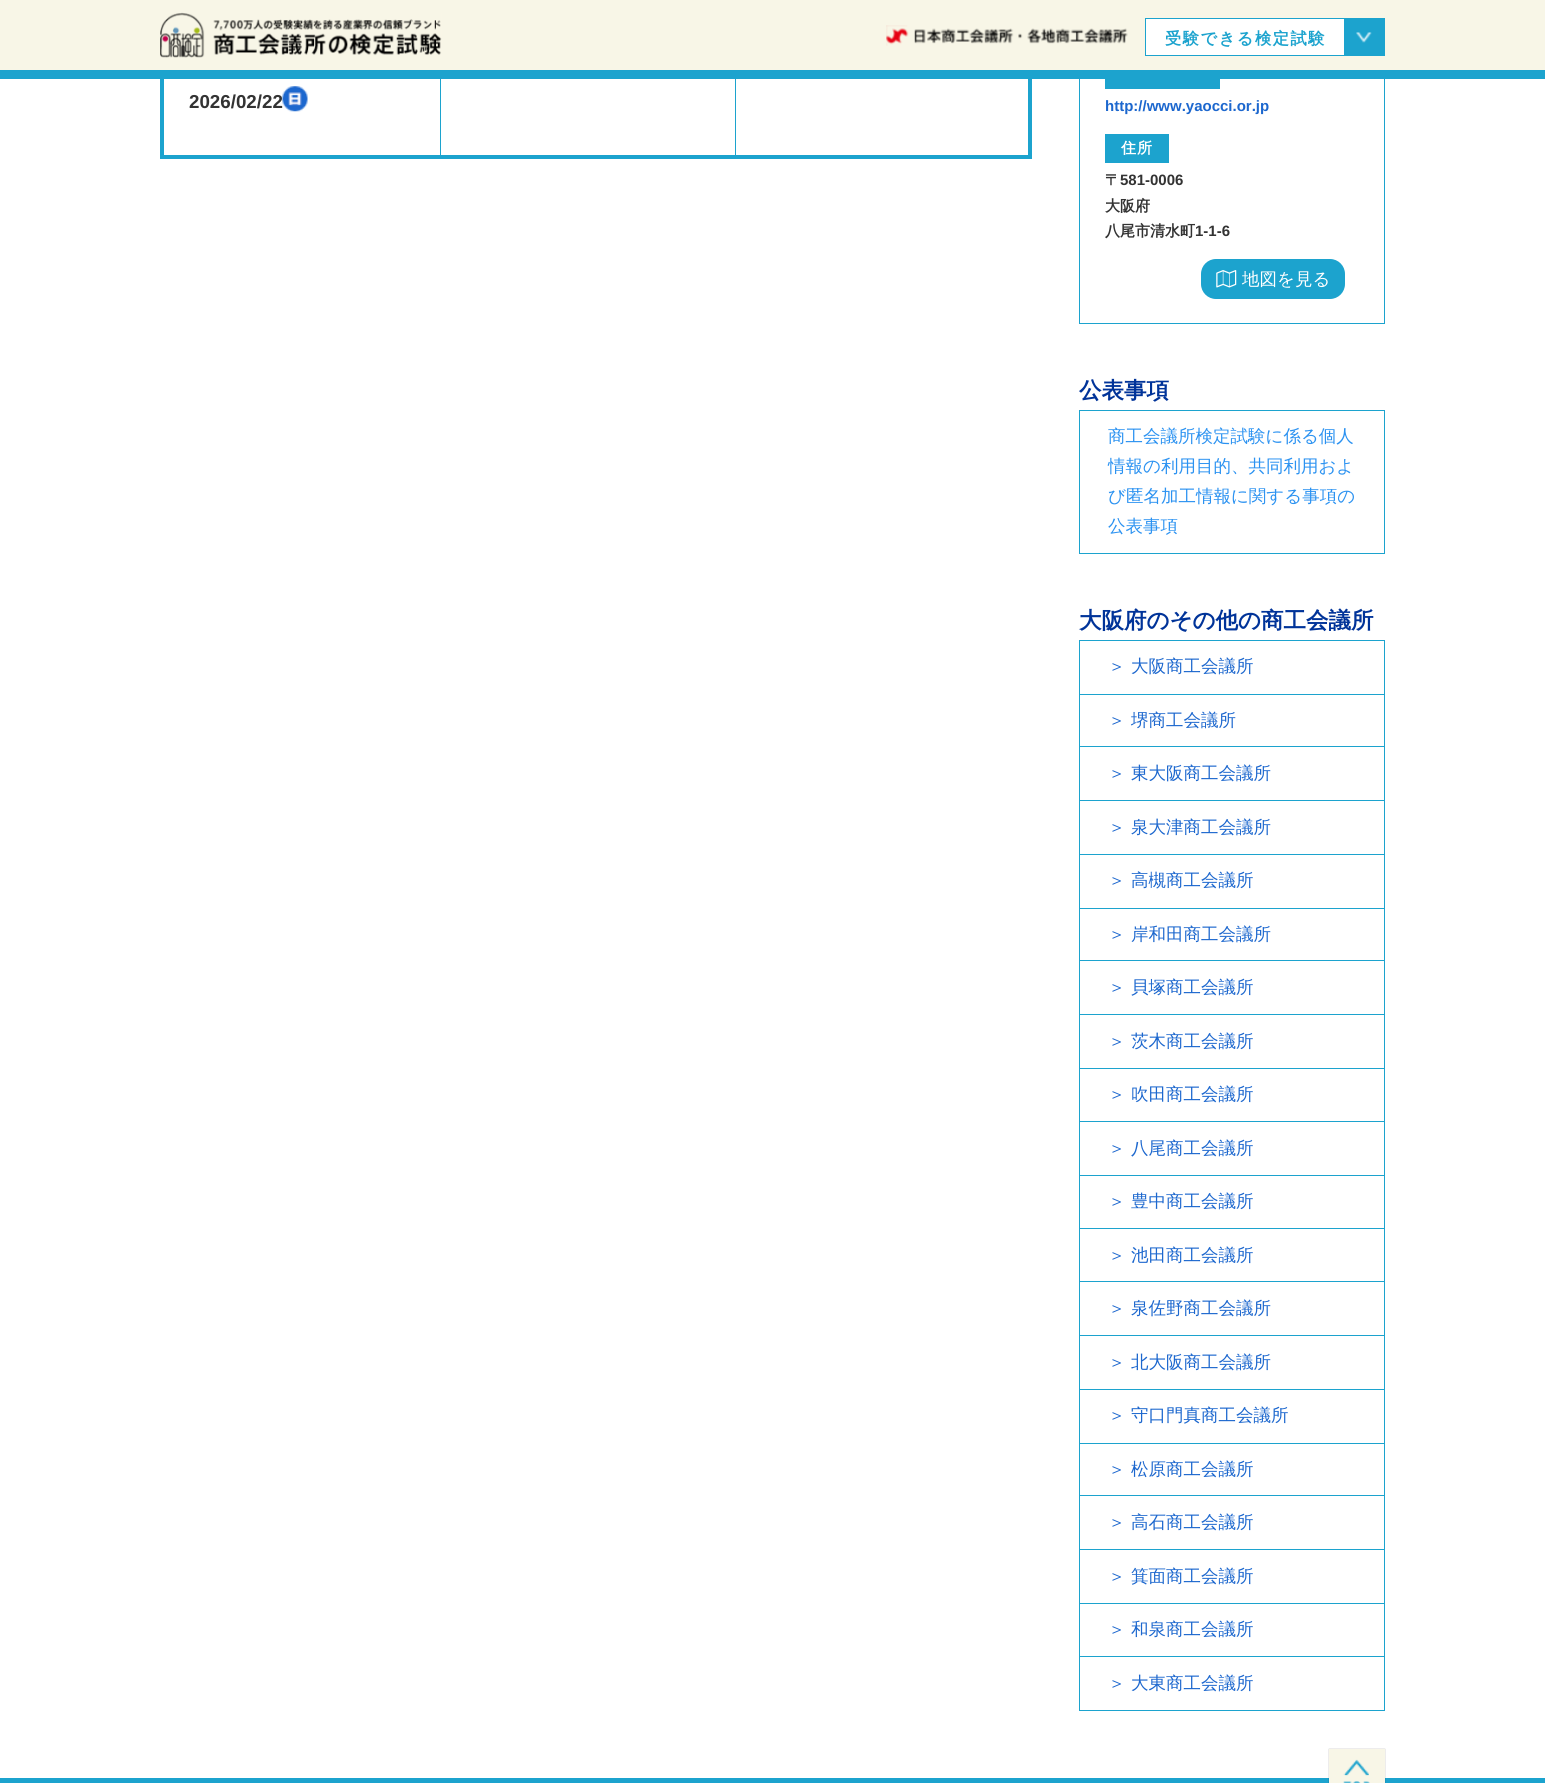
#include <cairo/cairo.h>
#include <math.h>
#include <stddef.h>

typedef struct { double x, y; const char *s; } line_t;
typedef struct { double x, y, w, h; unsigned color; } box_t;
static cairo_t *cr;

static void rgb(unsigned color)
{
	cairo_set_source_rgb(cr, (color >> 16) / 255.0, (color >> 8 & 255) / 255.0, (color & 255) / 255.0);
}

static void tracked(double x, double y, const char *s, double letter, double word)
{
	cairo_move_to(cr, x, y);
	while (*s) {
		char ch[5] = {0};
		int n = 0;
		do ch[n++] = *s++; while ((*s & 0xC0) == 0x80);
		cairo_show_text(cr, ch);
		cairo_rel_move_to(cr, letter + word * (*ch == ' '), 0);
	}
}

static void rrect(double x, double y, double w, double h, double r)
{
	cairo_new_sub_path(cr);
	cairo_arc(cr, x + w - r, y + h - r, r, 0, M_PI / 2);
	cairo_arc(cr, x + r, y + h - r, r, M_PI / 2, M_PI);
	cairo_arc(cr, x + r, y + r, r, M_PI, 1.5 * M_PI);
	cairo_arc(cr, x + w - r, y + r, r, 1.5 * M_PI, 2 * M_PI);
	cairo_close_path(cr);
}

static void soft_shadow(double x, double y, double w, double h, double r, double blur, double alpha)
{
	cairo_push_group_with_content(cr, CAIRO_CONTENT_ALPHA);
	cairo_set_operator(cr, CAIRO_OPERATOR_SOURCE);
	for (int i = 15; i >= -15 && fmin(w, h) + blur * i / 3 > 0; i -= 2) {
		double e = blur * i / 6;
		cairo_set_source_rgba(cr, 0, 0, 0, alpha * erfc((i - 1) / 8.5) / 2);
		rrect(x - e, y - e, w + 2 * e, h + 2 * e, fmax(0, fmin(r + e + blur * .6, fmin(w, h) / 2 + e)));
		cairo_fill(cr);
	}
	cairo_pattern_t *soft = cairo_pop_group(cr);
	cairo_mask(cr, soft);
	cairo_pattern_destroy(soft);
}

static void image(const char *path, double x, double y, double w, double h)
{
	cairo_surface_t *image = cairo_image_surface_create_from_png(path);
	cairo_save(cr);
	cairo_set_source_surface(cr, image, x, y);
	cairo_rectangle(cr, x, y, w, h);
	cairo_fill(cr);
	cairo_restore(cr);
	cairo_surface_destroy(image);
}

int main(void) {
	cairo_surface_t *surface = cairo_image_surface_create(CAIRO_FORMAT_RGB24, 1545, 1783);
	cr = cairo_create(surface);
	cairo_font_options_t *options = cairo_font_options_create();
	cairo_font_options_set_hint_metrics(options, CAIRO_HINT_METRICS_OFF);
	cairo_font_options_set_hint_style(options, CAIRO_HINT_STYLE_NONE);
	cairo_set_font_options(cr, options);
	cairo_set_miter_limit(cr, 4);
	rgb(0xffffff);
	cairo_paint(cr);
	cairo_rectangle(cr, 1079.5, -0.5, 305, 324);
	rgb(0x1ca3ce);
	cairo_set_line_width(cr, 1);
	cairo_stroke(cr);
	rgb(0xf8f6e7);
	cairo_rectangle(cr, 0, 0, 1545, 70);
	cairo_fill(cr);
	rgb(0x1ca3ce);
	cairo_rectangle(cr, 0, 70, 1545, 9);
	cairo_fill(cr);
	image("img/1.png", 160, 12, 282, 46);
	image("img/2.png", 886, 25, 242, 21);
	rgb(0xffffff);
	cairo_rectangle(cr, 1145.5, 18.5, 199, 37);
	cairo_fill_preserve(cr);
	rgb(0x1ca3ce);
	cairo_stroke(cr);
	cairo_rectangle(cr, 1345, 18, 40, 38);
	cairo_fill(cr);
	image("img/3.png", 1356, 32, 16, 11);
	{
		static const box_t items[] = {
			{1028, 79, 4, 80, 0x1ca3ce},
			{440, 79, 1, 79, 0x1ca3ce},
			{735, 79, 1, 79, 0x1ca3ce},
			{160, 155, 871, 4, 0x1ca3ce},
			{160, 79, 4, 80, 0x1ca3ce},
		};
		for (size_t i = 0; i < sizeof items / sizeof *items; i++) {
			rgb(items[i].color);
			cairo_rectangle(cr, items[i].x, items[i].y, items[i].w, items[i].h);
			cairo_fill(cr);
		}
	}
	image("img/4.png", 282, 86, 26, 26);
	cairo_rectangle(cr, 1105, 79, 115, 10);
	cairo_fill(cr);
	cairo_rectangle(cr, 1105, 134, 64, 29);
	cairo_fill(cr);
	rrect(1201, 259, 144, 40, 15);
	cairo_fill(cr);
	image("img/5.png", 1216, 270, 21, 18);
	cairo_rectangle(cr, 1079.5, 410.5, 305, 143);
	cairo_stroke(cr);
	cairo_rectangle(cr, 1079.5, 640.5, 305, 1070);
	cairo_stroke(cr);
	{
		static const box_t items[] = {
			{1080, 694, 304, 1, 0x1ca3ce},
			{1080, 746, 304, 1, 0x1ca3ce},
			{1080, 800, 304, 1, 0x1ca3ce},
			{1080, 854, 304, 1, 0x1ca3ce},
			{1080, 908, 304, 1, 0x1ca3ce},
			{1080, 960, 304, 1, 0x1ca3ce},
			{1080, 1014, 304, 1, 0x1ca3ce},
			{1080, 1068, 304, 1, 0x1ca3ce},
			{1080, 1121, 304, 1, 0x1ca3ce},
			{1080, 1175, 304, 1, 0x1ca3ce},
			{1080, 1228, 304, 1, 0x1ca3ce},
			{1080, 1281, 304, 1, 0x1ca3ce},
			{1080, 1335, 304, 1, 0x1ca3ce},
			{1080, 1389, 304, 1, 0x1ca3ce},
			{1080, 1443, 304, 1, 0x1ca3ce},
			{1080, 1495, 304, 1, 0x1ca3ce},
			{1080, 1549, 304, 1, 0x1ca3ce},
			{1080, 1603, 304, 1, 0x1ca3ce},
			{1080, 1656, 304, 1, 0x1ca3ce},
			{0, 1778, 1545, 5, 0x1ca3ce},
		};
		for (size_t i = 0; i < sizeof items / sizeof *items; i++) {
			rgb(items[i].color);
			cairo_rectangle(cr, items[i].x, items[i].y, items[i].w, items[i].h);
			cairo_fill(cr);
		}
	}
	rgb(0x070000);
	soft_shadow(1329, 1749, 56, 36, 0, 0.5, 0.3);
	rgb(0xf8f6e7);
	cairo_rectangle(cr, 1329, 1749, 56, 34);
	cairo_fill(cr);
	image("img/6.png", 1343, 1759, 27, 24);
	cairo_select_font_face(cr, "WenQuanYi Zen Hei", CAIRO_FONT_SLANT_NORMAL, CAIRO_FONT_WEIGHT_BOLD);
	cairo_set_font_size(cr, 16.25);
	rgb(0x1ca3ce);
	tracked(1165, 44, "受験できる検定試験", 1.5, 0);
	cairo_select_font_face(cr, "Liberation Sans", CAIRO_FONT_SLANT_NORMAL, CAIRO_FONT_WEIGHT_BOLD);
	cairo_set_font_size(cr, 18.75);
	rgb(0x333333);
	cairo_move_to(cr, 189, 108);
	cairo_show_text(cr, "2026/02/22");
	cairo_set_font_size(cr, 15);
	rgb(0x1c67ce);
	cairo_move_to(cr, 1105, 111);
	cairo_show_text(cr, "http://www.yaocci.or.jp");
	cairo_select_font_face(cr, "WenQuanYi Zen Hei", CAIRO_FONT_SLANT_NORMAL, CAIRO_FONT_WEIGHT_BOLD);
	rgb(0xffffff);
	tracked(1121, 153, "住所", 1, 0);
	rgb(0x333333);
	cairo_move_to(cr, 1105, 185);
	cairo_show_text(cr, "〒");
	cairo_select_font_face(cr, "Liberation Sans", CAIRO_FONT_SLANT_NORMAL, CAIRO_FONT_WEIGHT_BOLD);
	cairo_move_to(cr, 1120, 185);
	cairo_show_text(cr, "581-0006");
	cairo_select_font_face(cr, "WenQuanYi Zen Hei", CAIRO_FONT_SLANT_NORMAL, CAIRO_FONT_WEIGHT_BOLD);
	cairo_move_to(cr, 1105, 211);
	cairo_show_text(cr, "大阪府");
	cairo_move_to(cr, 1105, 236);
	cairo_show_text(cr, "八尾市清水町");
	cairo_select_font_face(cr, "Liberation Sans", CAIRO_FONT_SLANT_NORMAL, CAIRO_FONT_WEIGHT_BOLD);
	cairo_move_to(cr, 1195, 236);
	cairo_show_text(cr, "1-1-6");
	cairo_select_font_face(cr, "WenQuanYi Zen Hei Medium", CAIRO_FONT_SLANT_NORMAL, CAIRO_FONT_WEIGHT_NORMAL);
	cairo_set_font_size(cr, 17.5);
	rgb(0xffffff);
	cairo_move_to(cr, 1242, 285);
	cairo_show_text(cr, "地図を見る");
	cairo_select_font_face(cr, "WenQuanYi Zen Hei", CAIRO_FONT_SLANT_NORMAL, CAIRO_FONT_WEIGHT_BOLD);
	cairo_set_font_size(cr, 22.5);
	rgb(0x003399);
	cairo_move_to(cr, 1079, 398);
	cairo_show_text(cr, "公表事項");
	cairo_select_font_face(cr, "WenQuanYi Zen Hei Medium", CAIRO_FONT_SLANT_NORMAL, CAIRO_FONT_WEIGHT_NORMAL);
	cairo_set_font_size(cr, 17.5);
	rgb(0x2b92f1);
	{
		static const line_t items[] = {
			{1108, 442, "商工会議所検定試験に係る個人"},
			{1108, 472, "情報の利用目的、共同利用およ"},
			{1108, 502, "び匿名加工情報に関する事項の"},
			{1108, 532, "公表事項"},
		};
		for (size_t i = 0; i < sizeof items / sizeof *items; i++) {
			cairo_move_to(cr, items[i].x, items[i].y);
			cairo_show_text(cr, items[i].s);
		}
	}
	cairo_select_font_face(cr, "WenQuanYi Zen Hei", CAIRO_FONT_SLANT_NORMAL, CAIRO_FONT_WEIGHT_BOLD);
	cairo_set_font_size(cr, 22.5);
	rgb(0x003399);
	cairo_move_to(cr, 1079, 628);
	cairo_show_text(cr, "大阪府のその他の商工会議所");
	cairo_select_font_face(cr, "WenQuanYi Zen Hei Medium", CAIRO_FONT_SLANT_NORMAL, CAIRO_FONT_WEIGHT_NORMAL);
	cairo_set_font_size(cr, 17.5);
	rgb(0x1c67ce);
	{
		static const line_t items[] = {
			{1108, 672, "＞"},
			{1131, 672, "大阪商工会議所"},
			{1108, 726, "＞"},
			{1131, 726, "堺商工会議所"},
			{1108, 779, "＞"},
			{1131, 779, "東大阪商工会議所"},
			{1108, 833, "＞"},
			{1131, 833, "泉大津商工会議所"},
			{1108, 886, "＞"},
			{1131, 886, "高槻商工会議所"},
			{1108, 940, "＞"},
			{1131, 940, "岸和田商工会議所"},
			{1108, 993, "＞"},
			{1131, 993, "貝塚商工会議所"},
			{1108, 1047, "＞"},
			{1131, 1047, "茨木商工会議所"},
			{1108, 1100, "＞"},
			{1131, 1100, "吹田商工会議所"},
			{1108, 1154, "＞"},
			{1131, 1154, "八尾商工会議所"},
			{1108, 1207, "＞"},
			{1131, 1207, "豊中商工会議所"},
			{1108, 1261, "＞"},
			{1131, 1261, "池田商工会議所"},
			{1108, 1314, "＞"},
			{1131, 1314, "泉佐野商工会議所"},
			{1108, 1368, "＞"},
			{1131, 1368, "北大阪商工会議所"},
			{1108, 1421, "＞"},
			{1131, 1421, "守口門真商工会議所"},
			{1108, 1475, "＞"},
			{1131, 1475, "松原商工会議所"},
			{1108, 1528, "＞"},
			{1131, 1528, "高石商工会議所"},
			{1108, 1582, "＞"},
			{1131, 1582, "箕面商工会議所"},
			{1108, 1635, "＞"},
			{1131, 1635, "和泉商工会議所"},
			{1108, 1689, "＞"},
			{1131, 1689, "大東商工会議所"},
		};
		for (size_t i = 0; i < sizeof items / sizeof *items; i++) {
			cairo_move_to(cr, items[i].x, items[i].y);
			cairo_show_text(cr, items[i].s);
		}
	}
	cairo_surface_write_to_png(surface, "page.png");
	cairo_font_options_destroy(options);
	cairo_destroy(cr);
	cairo_surface_destroy(surface);
	return 0;
}
